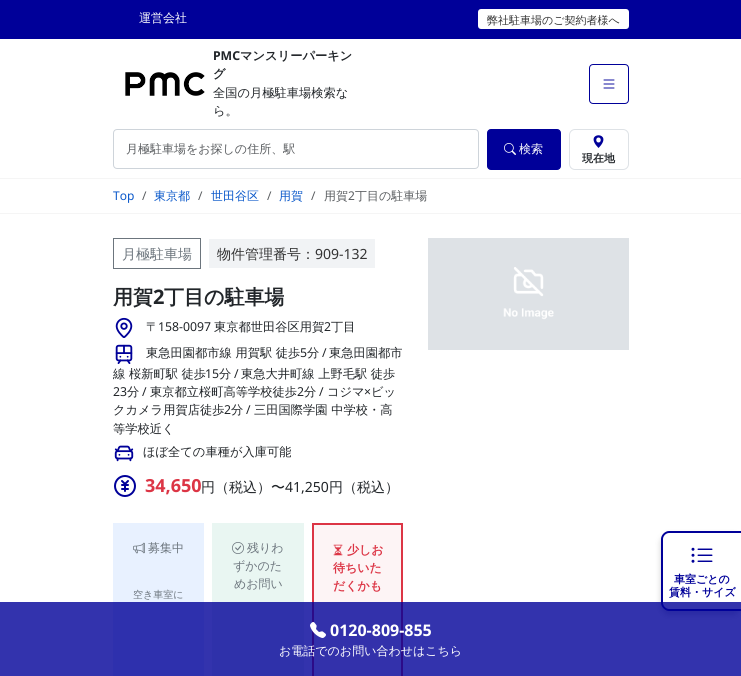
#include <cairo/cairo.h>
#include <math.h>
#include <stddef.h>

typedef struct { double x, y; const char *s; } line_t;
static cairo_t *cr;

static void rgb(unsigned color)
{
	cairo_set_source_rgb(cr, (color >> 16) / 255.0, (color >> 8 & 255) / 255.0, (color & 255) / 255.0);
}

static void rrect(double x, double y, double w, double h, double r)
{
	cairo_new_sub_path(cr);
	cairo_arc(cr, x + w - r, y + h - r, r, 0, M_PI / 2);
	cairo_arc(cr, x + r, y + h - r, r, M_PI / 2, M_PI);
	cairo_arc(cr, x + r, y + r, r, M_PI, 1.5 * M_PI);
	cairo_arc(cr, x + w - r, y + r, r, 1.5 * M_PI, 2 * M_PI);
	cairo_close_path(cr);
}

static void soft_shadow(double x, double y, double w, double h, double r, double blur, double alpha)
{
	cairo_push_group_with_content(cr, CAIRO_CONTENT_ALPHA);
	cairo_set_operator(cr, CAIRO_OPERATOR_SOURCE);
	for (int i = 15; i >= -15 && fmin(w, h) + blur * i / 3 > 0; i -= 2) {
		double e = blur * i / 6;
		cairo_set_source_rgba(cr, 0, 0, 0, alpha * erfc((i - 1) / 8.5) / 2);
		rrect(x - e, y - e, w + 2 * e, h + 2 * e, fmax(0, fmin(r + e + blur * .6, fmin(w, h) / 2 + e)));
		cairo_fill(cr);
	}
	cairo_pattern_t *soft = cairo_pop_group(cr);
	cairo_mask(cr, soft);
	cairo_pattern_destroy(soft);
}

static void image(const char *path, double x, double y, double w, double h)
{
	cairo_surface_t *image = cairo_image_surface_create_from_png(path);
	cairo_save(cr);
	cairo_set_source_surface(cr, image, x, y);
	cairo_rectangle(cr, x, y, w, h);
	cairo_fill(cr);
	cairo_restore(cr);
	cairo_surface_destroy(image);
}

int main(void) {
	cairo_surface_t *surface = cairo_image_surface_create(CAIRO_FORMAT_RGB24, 741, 676);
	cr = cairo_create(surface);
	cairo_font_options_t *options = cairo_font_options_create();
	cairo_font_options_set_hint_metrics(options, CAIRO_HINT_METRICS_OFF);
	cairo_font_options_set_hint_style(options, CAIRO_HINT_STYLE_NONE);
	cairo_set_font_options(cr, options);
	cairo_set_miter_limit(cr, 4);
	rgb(0xffffff);
	cairo_paint(cr);
	rgb(0x000099);
	cairo_rectangle(cr, 0, 0, 741, 39);
	cairo_fill(cr);
	rgb(0xffffff);
	rrect(478, 9, 151, 20, 3);
	cairo_fill(cr);
	image("img/1.png", 125, 72, 80, 24);
	rrect(589.5, 64.5, 39, 39, 3.5);
	rgb(0x000099);
	cairo_set_line_width(cr, 1);
	cairo_stroke(cr);
	image("img/2.png", 603, 79, 12, 10);
	rrect(113.5, 129.5, 365, 39, 3.5);
	rgb(0xced4da);
	cairo_stroke(cr);
	rgb(0x000099);
	rrect(487.5, 129.5, 73, 40, 3.5);
	cairo_fill_preserve(cr);
	cairo_stroke(cr);
	image("img/3.png", 504, 143, 12, 12);
	rrect(569.5, 129.5, 59, 40, 5.5);
	rgb(0xdee2e6);
	cairo_stroke(cr);
	rgb(0x000099);
	cairo_new_path(cr);
	cairo_move_to(cr, 598.5, 148);
	cairo_curve_to(cr, 615.5, 131, 581.5, 131, 598.5, 148);
	cairo_close_path(cr);
	cairo_move_to(cr, 598.5, 142.5);
	cairo_curve_to(cr, 595.5, 142.5, 595.5, 137.5, 598.5, 137.5);
	cairo_curve_to(cr, 601.5, 137.5, 601.5, 142.5, 598.5, 142.5);
	cairo_close_path(cr);
	cairo_fill(cr);
	rgb(0xf5f5f5);
	cairo_rectangle(cr, 0, 178, 741, 1);
	cairo_fill(cr);
	cairo_rectangle(cr, 0, 213, 741, 1);
	cairo_fill(cr);
	cairo_rectangle(cr, 113.5, 238.5, 87, 30);
	rgb(0x6c757d);
	cairo_stroke(cr);
	rgb(0xf1f3f5);
	cairo_rectangle(cr, 209, 239, 166, 29);
	cairo_fill(cr);
	image("img/4.png", 115, 317, 18, 21);
	image("img/5.png", 115, 344, 18, 20);
	image("img/6.png", 114, 445, 20, 17);
	image("img/7.png", 114, 475, 22, 22);
	rgb(0xe8f1ff);
	cairo_rectangle(cr, 113, 523, 91, 153);
	cairo_fill(cr);
	image("img/8.png", 133, 542, 12, 12);
	rgb(0xe9f6f2);
	cairo_rectangle(cr, 212, 523, 92, 153);
	cairo_fill(cr);
	image("img/9.png", 232, 542, 12, 12);
	rgb(0xfdf4f5);
	cairo_rectangle(cr, 313, 524, 89, 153);
	cairo_fill_preserve(cr);
	rgb(0xdc3545);
	cairo_set_line_width(cr, 2);
	cairo_stroke(cr);
	image("img/10.png", 333, 544, 10, 12);
	image("img/11.png", 428, 238, 201, 112);
	rgb(0x000000);
	soft_shadow(661, 535, 80, 80, 8, 3, 0.2);
	rgb(0xffffff);
	cairo_new_path(cr);
	cairo_move_to(cr, 669, 531);
	cairo_line_to(cr, 741, 531);
	cairo_line_to(cr, 741, 611);
	cairo_line_to(cr, 669, 611);
	cairo_curve_to(cr, 664.5, 611, 661, 607.5, 661, 603);
	cairo_line_to(cr, 661, 539);
	cairo_curve_to(cr, 661, 534.5, 664.5, 531, 669, 531);
	cairo_close_path(cr);
	cairo_fill(cr);
	rgb(0x000099);
	cairo_set_fill_rule(cr, CAIRO_FILL_RULE_EVEN_ODD);
	cairo_new_path(cr);
	cairo_move_to(cr, 669, 531);
	cairo_line_to(cr, 741, 531);
	cairo_line_to(cr, 741, 611);
	cairo_line_to(cr, 669, 611);
	cairo_curve_to(cr, 665, 611, 661, 607, 661, 603);
	cairo_line_to(cr, 661, 539);
	cairo_curve_to(cr, 661, 535, 665, 531, 669, 531);
	cairo_close_path(cr);
	cairo_move_to(cr, 669, 533);
	cairo_line_to(cr, 741, 533);
	cairo_line_to(cr, 741, 609);
	cairo_line_to(cr, 669, 609);
	cairo_curve_to(cr, 666, 609, 663, 606, 663, 603);
	cairo_line_to(cr, 663, 539);
	cairo_curve_to(cr, 663, 536, 666, 533, 669, 533);
	cairo_close_path(cr);
	cairo_fill(cr);
	image("img/12.png", 691, 547, 22, 16);
	cairo_set_source_rgba(cr, 0, 0, 0.6, 0.8);
	cairo_rectangle(cr, 0, 602, 741, 74);
	cairo_fill(cr);
	image("img/13.png", 310, 622, 16, 16);
	cairo_select_font_face(cr, "WenQuanYi Zen Hei Medium", CAIRO_FONT_SLANT_NORMAL, CAIRO_FONT_WEIGHT_NORMAL);
	cairo_set_font_size(cr, 12);
	rgb(0xffffff);
	cairo_move_to(cr, 139, 22);
	cairo_show_text(cr, "運営会社");
	cairo_set_font_size(cr, 11);
	rgb(0x333333);
	cairo_move_to(cr, 487, 24);
	cairo_show_text(cr, "弊社駐車場のご契約者様へ");
	cairo_select_font_face(cr, "Noto Sans", CAIRO_FONT_SLANT_NORMAL, CAIRO_FONT_WEIGHT_BOLD);
	cairo_set_font_size(cr, 12.25);
	rgb(0x212529);
	cairo_move_to(cr, 213, 60);
	cairo_show_text(cr, "PMC");
	cairo_select_font_face(cr, "WenQuanYi Zen Hei", CAIRO_FONT_SLANT_NORMAL, CAIRO_FONT_WEIGHT_BOLD);
	cairo_move_to(cr, 240, 60);
	cairo_show_text(cr, "マンスリーパーキン");
	cairo_move_to(cr, 213, 78);
	cairo_show_text(cr, "グ");
	cairo_select_font_face(cr, "WenQuanYi Zen Hei Medium", CAIRO_FONT_SLANT_NORMAL, CAIRO_FONT_WEIGHT_NORMAL);
	cairo_move_to(cr, 213, 97);
	cairo_show_text(cr, "全国の月極駐車場検索な");
	cairo_move_to(cr, 213, 115);
	cairo_show_text(cr, "ら。");
	cairo_set_font_size(cr, 12);
	rgb(0x595c5f);
	cairo_move_to(cr, 126, 153);
	cairo_show_text(cr, "月極駐車場をお探しの住所、駅");
	rgb(0xffffff);
	cairo_move_to(cr, 519, 153);
	cairo_show_text(cr, "検索");
	cairo_select_font_face(cr, "WenQuanYi Zen Hei", CAIRO_FONT_SLANT_NORMAL, CAIRO_FONT_WEIGHT_BOLD);
	cairo_set_font_size(cr, 11);
	rgb(0x212529);
	cairo_move_to(cr, 582, 162);
	cairo_show_text(cr, "現在地");
	cairo_select_font_face(cr, "Noto Sans", CAIRO_FONT_SLANT_NORMAL, CAIRO_FONT_WEIGHT_NORMAL);
	cairo_set_font_size(cr, 12);
	rgb(0x0a58ca);
	cairo_move_to(cr, 113, 200);
	cairo_show_text(cr, "Top");
	rgb(0x595c5f);
	cairo_move_to(cr, 142, 200);
	cairo_show_text(cr, "/");
	cairo_select_font_face(cr, "WenQuanYi Zen Hei Medium", CAIRO_FONT_SLANT_NORMAL, CAIRO_FONT_WEIGHT_NORMAL);
	rgb(0x0a58ca);
	cairo_move_to(cr, 154, 200);
	cairo_show_text(cr, "東京都");
	cairo_select_font_face(cr, "Noto Sans", CAIRO_FONT_SLANT_NORMAL, CAIRO_FONT_WEIGHT_NORMAL);
	rgb(0x595c5f);
	cairo_move_to(cr, 198, 200);
	cairo_show_text(cr, "/");
	cairo_select_font_face(cr, "WenQuanYi Zen Hei Medium", CAIRO_FONT_SLANT_NORMAL, CAIRO_FONT_WEIGHT_NORMAL);
	rgb(0x0a58ca);
	cairo_move_to(cr, 211, 200);
	cairo_show_text(cr, "世田谷区");
	cairo_select_font_face(cr, "Noto Sans", CAIRO_FONT_SLANT_NORMAL, CAIRO_FONT_WEIGHT_NORMAL);
	rgb(0x595c5f);
	cairo_move_to(cr, 267, 200);
	cairo_show_text(cr, "/");
	cairo_select_font_face(cr, "WenQuanYi Zen Hei Medium", CAIRO_FONT_SLANT_NORMAL, CAIRO_FONT_WEIGHT_NORMAL);
	rgb(0x0a58ca);
	cairo_move_to(cr, 279, 200);
	cairo_show_text(cr, "用賀");
	cairo_select_font_face(cr, "Noto Sans", CAIRO_FONT_SLANT_NORMAL, CAIRO_FONT_WEIGHT_NORMAL);
	rgb(0x595c5f);
	cairo_move_to(cr, 311, 200);
	cairo_show_text(cr, "/");
	cairo_select_font_face(cr, "WenQuanYi Zen Hei Medium", CAIRO_FONT_SLANT_NORMAL, CAIRO_FONT_WEIGHT_NORMAL);
	cairo_move_to(cr, 324, 200);
	cairo_show_text(cr, "用賀");
	cairo_select_font_face(cr, "Noto Sans", CAIRO_FONT_SLANT_NORMAL, CAIRO_FONT_WEIGHT_NORMAL);
	cairo_move_to(cr, 348, 200);
	cairo_show_text(cr, "2");
	cairo_select_font_face(cr, "WenQuanYi Zen Hei Medium", CAIRO_FONT_SLANT_NORMAL, CAIRO_FONT_WEIGHT_NORMAL);
	cairo_move_to(cr, 355, 200);
	cairo_show_text(cr, "丁目の駐車場");
	cairo_set_font_size(cr, 14);
	rgb(0x6c757d);
	cairo_move_to(cr, 122, 259);
	cairo_show_text(cr, "月極駐車場");
	rgb(0x333333);
	cairo_move_to(cr, 217, 259);
	cairo_show_text(cr, "物件管理番号：");
	cairo_select_font_face(cr, "Noto Sans", CAIRO_FONT_SLANT_NORMAL, CAIRO_FONT_WEIGHT_NORMAL);
	cairo_move_to(cr, 315, 259);
	cairo_show_text(cr, "909-132");
	cairo_select_font_face(cr, "WenQuanYi Zen Hei", CAIRO_FONT_SLANT_NORMAL, CAIRO_FONT_WEIGHT_BOLD);
	cairo_set_font_size(cr, 20);
	rgb(0x212529);
	cairo_move_to(cr, 113, 304);
	cairo_show_text(cr, "用賀");
	cairo_select_font_face(cr, "Noto Sans", CAIRO_FONT_SLANT_NORMAL, CAIRO_FONT_WEIGHT_BOLD);
	cairo_move_to(cr, 153, 304);
	cairo_show_text(cr, "2");
	cairo_select_font_face(cr, "WenQuanYi Zen Hei", CAIRO_FONT_SLANT_NORMAL, CAIRO_FONT_WEIGHT_BOLD);
	cairo_move_to(cr, 164, 304);
	cairo_show_text(cr, "丁目の駐車場");
	cairo_select_font_face(cr, "WenQuanYi Zen Hei Medium", CAIRO_FONT_SLANT_NORMAL, CAIRO_FONT_WEIGHT_NORMAL);
	cairo_set_font_size(cr, 12.25);
	cairo_move_to(cr, 146, 331);
	cairo_show_text(cr, "〒");
	cairo_select_font_face(cr, "Noto Sans", CAIRO_FONT_SLANT_NORMAL, CAIRO_FONT_WEIGHT_NORMAL);
	cairo_move_to(cr, 158, 331);
	cairo_show_text(cr, "158-0097");
	cairo_select_font_face(cr, "WenQuanYi Zen Hei Medium", CAIRO_FONT_SLANT_NORMAL, CAIRO_FONT_WEIGHT_NORMAL);
	cairo_move_to(cr, 214, 331);
	cairo_show_text(cr, "東京都世田谷区用賀");
	cairo_select_font_face(cr, "Noto Sans", CAIRO_FONT_SLANT_NORMAL, CAIRO_FONT_WEIGHT_NORMAL);
	cairo_move_to(cr, 324, 331);
	cairo_show_text(cr, "2");
	cairo_select_font_face(cr, "WenQuanYi Zen Hei Medium", CAIRO_FONT_SLANT_NORMAL, CAIRO_FONT_WEIGHT_NORMAL);
	cairo_move_to(cr, 331, 331);
	cairo_show_text(cr, "丁目");
	cairo_move_to(cr, 146, 357);
	cairo_show_text(cr, "東急田園都市線 用賀駅 徒歩");
	cairo_select_font_face(cr, "Noto Sans", CAIRO_FONT_SLANT_NORMAL, CAIRO_FONT_WEIGHT_NORMAL);
	cairo_move_to(cr, 300, 357);
	cairo_show_text(cr, "5");
	cairo_select_font_face(cr, "WenQuanYi Zen Hei Medium", CAIRO_FONT_SLANT_NORMAL, CAIRO_FONT_WEIGHT_NORMAL);
	cairo_move_to(cr, 307, 357);
	cairo_show_text(cr, "分");
	cairo_select_font_face(cr, "Noto Sans", CAIRO_FONT_SLANT_NORMAL, CAIRO_FONT_WEIGHT_NORMAL);
	cairo_move_to(cr, 322, 357);
	cairo_show_text(cr, "/");
	cairo_select_font_face(cr, "WenQuanYi Zen Hei Medium", CAIRO_FONT_SLANT_NORMAL, CAIRO_FONT_WEIGHT_NORMAL);
	cairo_move_to(cr, 329, 357);
	cairo_show_text(cr, "東急田園都市");
	cairo_move_to(cr, 113, 378);
	cairo_show_text(cr, "線 桜新町駅 徒歩");
	cairo_select_font_face(cr, "Noto Sans", CAIRO_FONT_SLANT_NORMAL, CAIRO_FONT_WEIGHT_NORMAL);
	cairo_move_to(cr, 205, 378);
	cairo_show_text(cr, "15");
	cairo_select_font_face(cr, "WenQuanYi Zen Hei Medium", CAIRO_FONT_SLANT_NORMAL, CAIRO_FONT_WEIGHT_NORMAL);
	cairo_move_to(cr, 219, 378);
	cairo_show_text(cr, "分");
	cairo_select_font_face(cr, "Noto Sans", CAIRO_FONT_SLANT_NORMAL, CAIRO_FONT_WEIGHT_NORMAL);
	cairo_move_to(cr, 234, 378);
	cairo_show_text(cr, "/");
	cairo_select_font_face(cr, "WenQuanYi Zen Hei Medium", CAIRO_FONT_SLANT_NORMAL, CAIRO_FONT_WEIGHT_NORMAL);
	cairo_move_to(cr, 241, 378);
	cairo_show_text(cr, "東急大井町線 上野毛駅 徒歩");
	cairo_select_font_face(cr, "Noto Sans", CAIRO_FONT_SLANT_NORMAL, CAIRO_FONT_WEIGHT_NORMAL);
	cairo_move_to(cr, 113, 396);
	cairo_show_text(cr, "23");
	cairo_select_font_face(cr, "WenQuanYi Zen Hei Medium", CAIRO_FONT_SLANT_NORMAL, CAIRO_FONT_WEIGHT_NORMAL);
	cairo_move_to(cr, 127, 396);
	cairo_show_text(cr, "分");
	cairo_select_font_face(cr, "Noto Sans", CAIRO_FONT_SLANT_NORMAL, CAIRO_FONT_WEIGHT_NORMAL);
	cairo_move_to(cr, 142, 396);
	cairo_show_text(cr, "/");
	cairo_select_font_face(cr, "WenQuanYi Zen Hei Medium", CAIRO_FONT_SLANT_NORMAL, CAIRO_FONT_WEIGHT_NORMAL);
	cairo_move_to(cr, 150, 396);
	cairo_show_text(cr, "東京都立桜町高等学校徒歩");
	cairo_select_font_face(cr, "Noto Sans", CAIRO_FONT_SLANT_NORMAL, CAIRO_FONT_WEIGHT_NORMAL);
	cairo_move_to(cr, 297, 396);
	cairo_show_text(cr, "2");
	cairo_select_font_face(cr, "WenQuanYi Zen Hei Medium", CAIRO_FONT_SLANT_NORMAL, CAIRO_FONT_WEIGHT_NORMAL);
	cairo_move_to(cr, 304, 396);
	cairo_show_text(cr, "分");
	cairo_select_font_face(cr, "Noto Sans", CAIRO_FONT_SLANT_NORMAL, CAIRO_FONT_WEIGHT_NORMAL);
	cairo_move_to(cr, 319, 396);
	cairo_show_text(cr, "/");
	cairo_select_font_face(cr, "WenQuanYi Zen Hei Medium", CAIRO_FONT_SLANT_NORMAL, CAIRO_FONT_WEIGHT_NORMAL);
	cairo_move_to(cr, 327, 396);
	cairo_show_text(cr, "コジマ");
	cairo_select_font_face(cr, "Noto Sans", CAIRO_FONT_SLANT_NORMAL, CAIRO_FONT_WEIGHT_NORMAL);
	cairo_move_to(cr, 364, 396);
	cairo_show_text(cr, "×");
	cairo_select_font_face(cr, "WenQuanYi Zen Hei Medium", CAIRO_FONT_SLANT_NORMAL, CAIRO_FONT_WEIGHT_NORMAL);
	cairo_move_to(cr, 371, 396);
	cairo_show_text(cr, "ビッ");
	cairo_move_to(cr, 113, 414);
	cairo_show_text(cr, "クカメラ用賀店徒歩");
	cairo_select_font_face(cr, "Noto Sans", CAIRO_FONT_SLANT_NORMAL, CAIRO_FONT_WEIGHT_NORMAL);
	cairo_move_to(cr, 224, 414);
	cairo_show_text(cr, "2");
	cairo_select_font_face(cr, "WenQuanYi Zen Hei Medium", CAIRO_FONT_SLANT_NORMAL, CAIRO_FONT_WEIGHT_NORMAL);
	cairo_move_to(cr, 231, 414);
	cairo_show_text(cr, "分");
	cairo_select_font_face(cr, "Noto Sans", CAIRO_FONT_SLANT_NORMAL, CAIRO_FONT_WEIGHT_NORMAL);
	cairo_move_to(cr, 246, 414);
	cairo_show_text(cr, "/");
	cairo_select_font_face(cr, "WenQuanYi Zen Hei Medium", CAIRO_FONT_SLANT_NORMAL, CAIRO_FONT_WEIGHT_NORMAL);
	{
		static const line_t items[] = {
			{254, 414, "三田国際学園 中学校・高"},
			{113, 433, "等学校近く"},
			{143, 456, "ほぼ全ての車種が入庫可能"},
		};
		for (size_t i = 0; i < sizeof items / sizeof *items; i++) {
			cairo_move_to(cr, items[i].x, items[i].y);
			cairo_show_text(cr, items[i].s);
		}
	}
	cairo_select_font_face(cr, "Noto Sans", CAIRO_FONT_SLANT_NORMAL, CAIRO_FONT_WEIGHT_BOLD);
	cairo_set_font_size(cr, 18);
	rgb(0xdc3545);
	cairo_move_to(cr, 145, 492);
	cairo_show_text(cr, "34,650");
	cairo_select_font_face(cr, "WenQuanYi Zen Hei Medium", CAIRO_FONT_SLANT_NORMAL, CAIRO_FONT_WEIGHT_NORMAL);
	cairo_set_font_size(cr, 14);
	rgb(0x212529);
	cairo_move_to(cr, 201, 492);
	cairo_show_text(cr, "円（税込）〜");
	cairo_select_font_face(cr, "Noto Sans", CAIRO_FONT_SLANT_NORMAL, CAIRO_FONT_WEIGHT_NORMAL);
	cairo_move_to(cr, 285, 492);
	cairo_show_text(cr, "41,250");
	cairo_select_font_face(cr, "WenQuanYi Zen Hei Medium", CAIRO_FONT_SLANT_NORMAL, CAIRO_FONT_WEIGHT_NORMAL);
	cairo_move_to(cr, 329, 492);
	cairo_show_text(cr, "円（税込）");
	cairo_set_font_size(cr, 12);
	rgb(0x6c757d);
	cairo_move_to(cr, 148, 552);
	cairo_show_text(cr, "募集中");
	cairo_set_font_size(cr, 10);
	cairo_move_to(cr, 133, 598);
	cairo_show_text(cr, "空き車室に");
	cairo_set_font_size(cr, 12);
	{
		static const line_t items[] = {
			{247, 552, "残りわ"},
			{233, 570, "ずかのた"},
			{234, 588, "めお問い"},
		};
		for (size_t i = 0; i < sizeof items / sizeof *items; i++) {
			cairo_move_to(cr, items[i].x, items[i].y);
			cairo_show_text(cr, items[i].s);
		}
	}
	cairo_select_font_face(cr, "WenQuanYi Zen Hei", CAIRO_FONT_SLANT_NORMAL, CAIRO_FONT_WEIGHT_BOLD);
	rgb(0xdc3545);
	{
		static const line_t items[] = {
			{347, 554, "少しお"},
			{333, 572, "待ちいた"},
			{333, 590, "だくかも"},
		};
		for (size_t i = 0; i < sizeof items / sizeof *items; i++) {
			cairo_move_to(cr, items[i].x, items[i].y);
			cairo_show_text(cr, items[i].s);
		}
	}
	cairo_set_font_size(cr, 11);
	rgb(0x000099);
	cairo_move_to(cr, 674, 583);
	cairo_show_text(cr, "車室ごとの");
	cairo_move_to(cr, 669, 596);
	cairo_show_text(cr, "賃料・サイズ");
	cairo_select_font_face(cr, "Noto Sans", CAIRO_FONT_SLANT_NORMAL, CAIRO_FONT_WEIGHT_BOLD);
	cairo_set_font_size(cr, 16);
	rgb(0xffffff);
	cairo_move_to(cr, 330, 636);
	cairo_show_text(cr, "0120-809-855");
	cairo_select_font_face(cr, "WenQuanYi Zen Hei Medium", CAIRO_FONT_SLANT_NORMAL, CAIRO_FONT_WEIGHT_NORMAL);
	cairo_set_font_size(cr, 12);
	cairo_move_to(cr, 279, 655);
	cairo_show_text(cr, "お電話でのお問い合わせはこちら");
	cairo_surface_write_to_png(surface, "page.png");
	cairo_font_options_destroy(options);
	cairo_destroy(cr);
	cairo_surface_destroy(surface);
	return 0;
}
